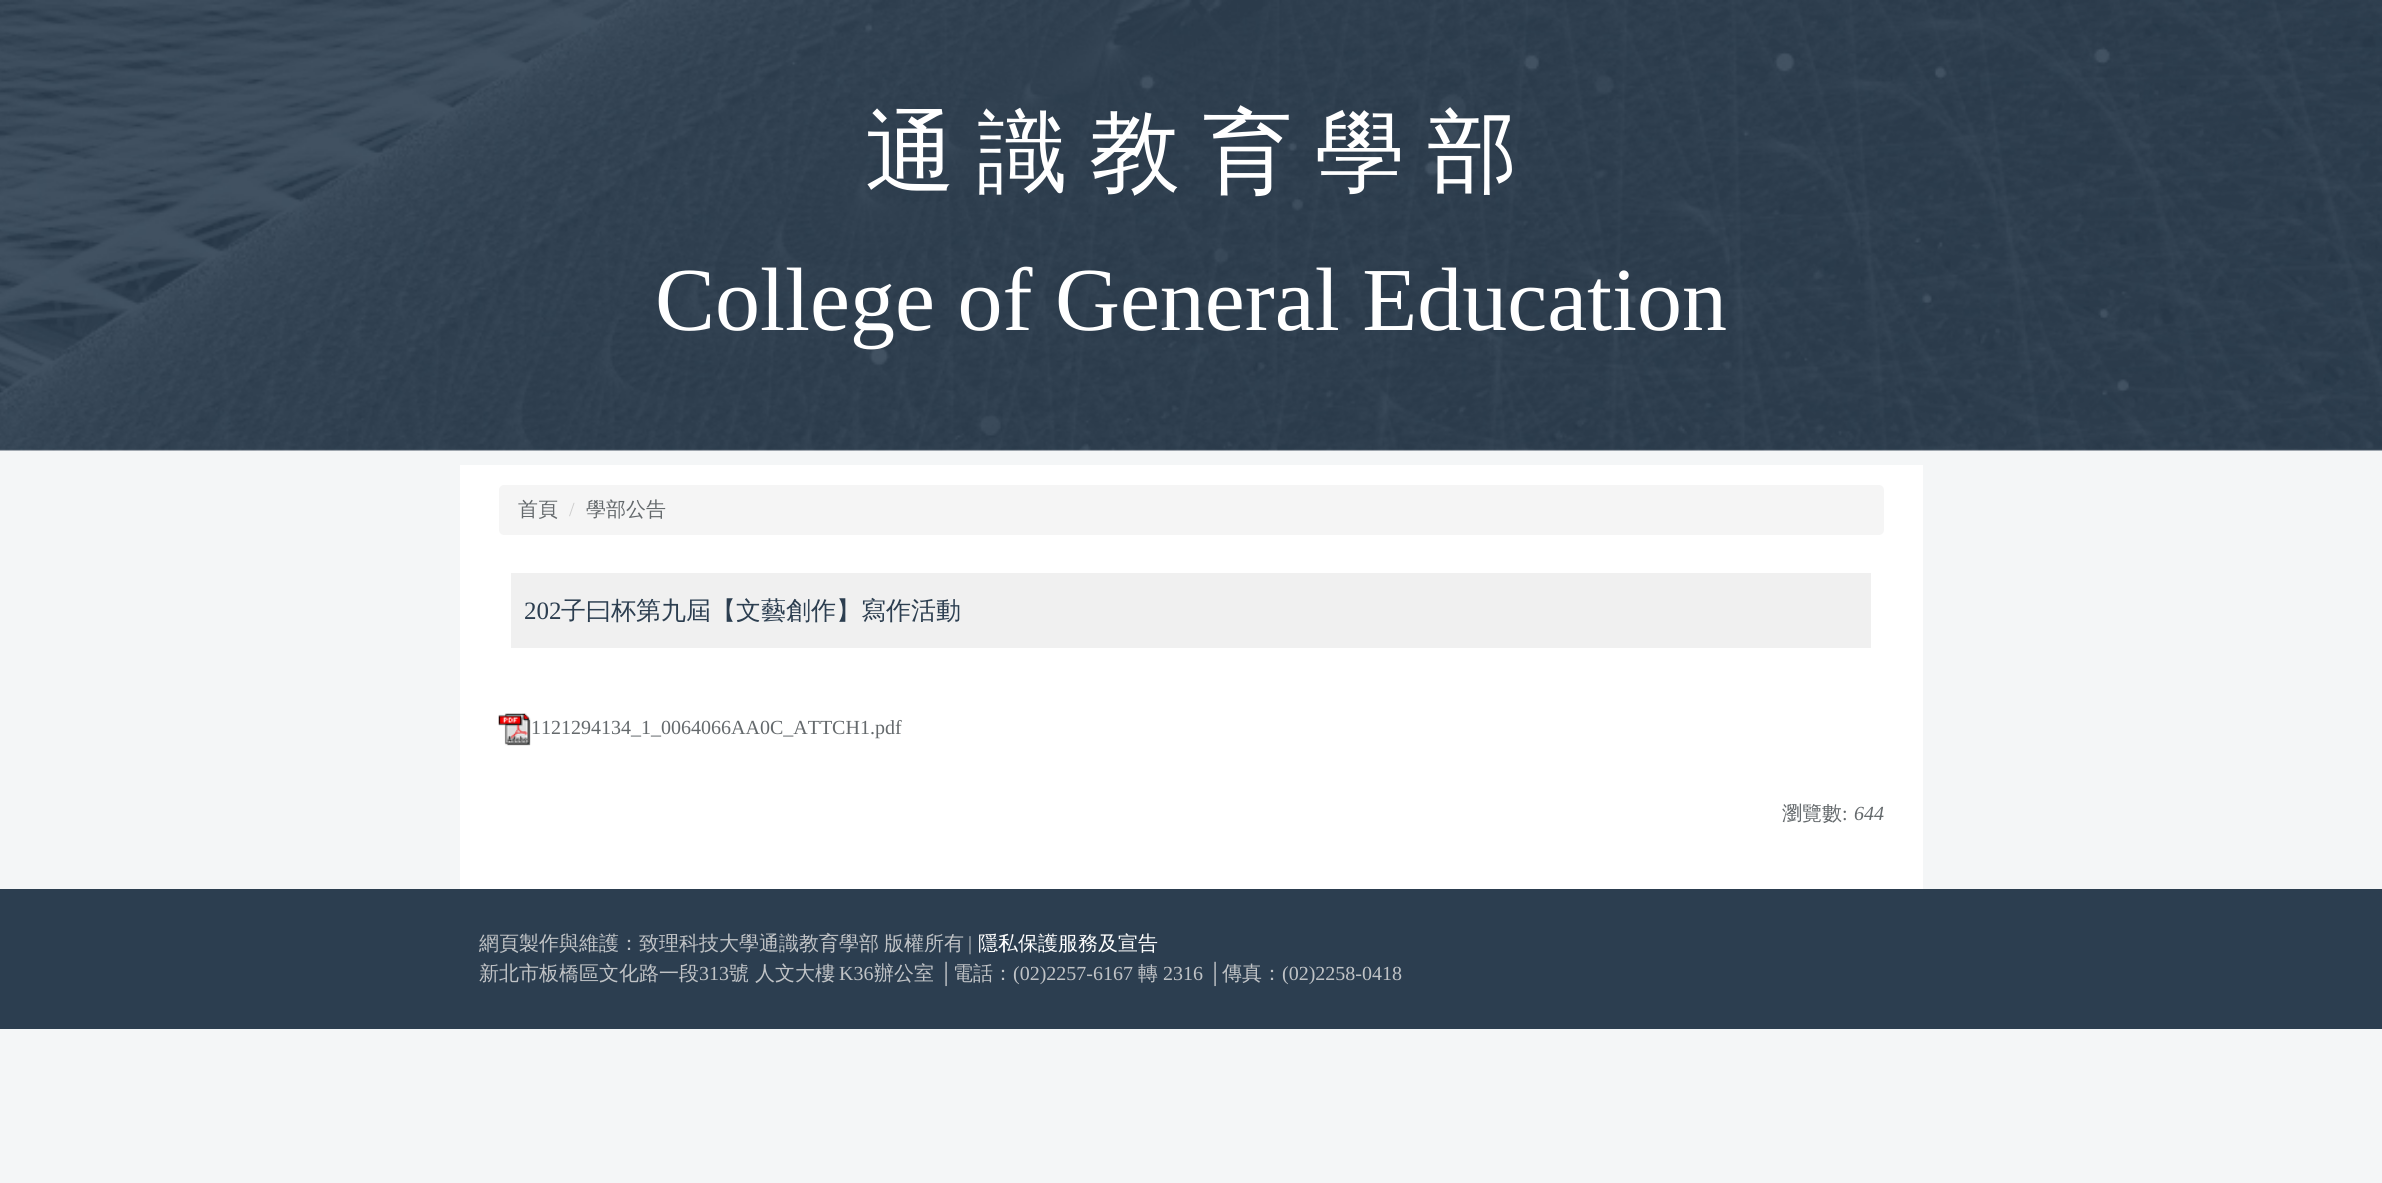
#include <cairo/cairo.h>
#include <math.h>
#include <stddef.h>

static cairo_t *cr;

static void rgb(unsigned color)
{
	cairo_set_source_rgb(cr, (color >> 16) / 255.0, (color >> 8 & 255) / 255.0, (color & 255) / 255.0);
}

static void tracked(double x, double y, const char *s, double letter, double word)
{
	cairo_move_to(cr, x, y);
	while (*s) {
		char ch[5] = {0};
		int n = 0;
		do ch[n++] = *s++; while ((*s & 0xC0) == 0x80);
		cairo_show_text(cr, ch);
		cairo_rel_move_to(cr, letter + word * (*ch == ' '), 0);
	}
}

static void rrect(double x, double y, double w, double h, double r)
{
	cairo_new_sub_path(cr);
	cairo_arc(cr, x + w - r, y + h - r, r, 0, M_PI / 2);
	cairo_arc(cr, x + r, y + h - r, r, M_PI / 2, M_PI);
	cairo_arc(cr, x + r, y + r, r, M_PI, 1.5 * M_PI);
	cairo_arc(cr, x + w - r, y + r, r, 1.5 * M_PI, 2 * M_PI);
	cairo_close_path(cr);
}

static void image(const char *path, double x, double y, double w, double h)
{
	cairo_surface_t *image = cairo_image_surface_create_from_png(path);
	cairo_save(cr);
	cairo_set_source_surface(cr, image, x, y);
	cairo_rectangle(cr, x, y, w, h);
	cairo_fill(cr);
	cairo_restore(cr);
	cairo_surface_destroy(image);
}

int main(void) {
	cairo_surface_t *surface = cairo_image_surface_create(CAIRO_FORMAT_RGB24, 2382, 1183);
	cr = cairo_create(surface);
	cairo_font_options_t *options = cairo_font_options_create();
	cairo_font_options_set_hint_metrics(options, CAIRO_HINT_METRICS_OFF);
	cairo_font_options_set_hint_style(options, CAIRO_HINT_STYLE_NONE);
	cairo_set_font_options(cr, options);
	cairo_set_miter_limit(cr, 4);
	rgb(0xf4f6f7);
	cairo_paint(cr);
	image("img/1.png", 0, 0, 2382, 451);
	rgb(0xffffff);
	cairo_rectangle(cr, 460, 465, 1463, 424);
	cairo_fill(cr);
	rgb(0xf5f5f5);
	rrect(499, 485, 1385, 50, 5);
	cairo_fill(cr);
	rgb(0xf0f0f0);
	cairo_rectangle(cr, 511, 573, 1360, 75);
	cairo_fill(cr);
	image("img/2.png", 498, 713, 33, 33);
	rgb(0x2c3e50);
	cairo_rectangle(cr, 0, 889, 2382, 140);
	cairo_fill(cr);
	cairo_select_font_face(cr, "WenQuanYi Zen Hei Medium", CAIRO_FONT_SLANT_NORMAL, CAIRO_FONT_WEIGHT_NORMAL);
	cairo_set_font_size(cr, 90);
	rgb(0xffffff);
	tracked(865, 183, "通 識 教 育 學 部", 0, -4.5);
	cairo_select_font_face(cr, "Liberation Serif", CAIRO_FONT_SLANT_NORMAL, CAIRO_FONT_WEIGHT_NORMAL);
	cairo_move_to(cr, 655, 330);
	cairo_show_text(cr, "College of General Education");
	cairo_select_font_face(cr, "WenQuanYi Zen Hei Medium", CAIRO_FONT_SLANT_NORMAL, CAIRO_FONT_WEIGHT_NORMAL);
	cairo_set_font_size(cr, 20);
	rgb(0x64696c);
	cairo_move_to(cr, 518, 516);
	cairo_show_text(cr, "首頁");
	cairo_select_font_face(cr, "Liberation Serif", CAIRO_FONT_SLANT_NORMAL, CAIRO_FONT_WEIGHT_NORMAL);
	rgb(0xcccccc);
	cairo_move_to(cr, 569, 516);
	cairo_show_text(cr, "/");
	cairo_select_font_face(cr, "WenQuanYi Zen Hei Medium", CAIRO_FONT_SLANT_NORMAL, CAIRO_FONT_WEIGHT_NORMAL);
	rgb(0x64696c);
	cairo_move_to(cr, 586, 516);
	cairo_show_text(cr, "學部公告");
	cairo_select_font_face(cr, "Liberation Serif", CAIRO_FONT_SLANT_NORMAL, CAIRO_FONT_WEIGHT_NORMAL);
	cairo_set_font_size(cr, 25);
	rgb(0x2c3e50);
	cairo_move_to(cr, 524, 619);
	cairo_show_text(cr, "202");
	cairo_select_font_face(cr, "WenQuanYi Zen Hei Medium", CAIRO_FONT_SLANT_NORMAL, CAIRO_FONT_WEIGHT_NORMAL);
	cairo_move_to(cr, 561, 619);
	cairo_show_text(cr, "子曰杯第九屆【文藝創作】寫作活動");
	cairo_select_font_face(cr, "Liberation Serif", CAIRO_FONT_SLANT_NORMAL, CAIRO_FONT_WEIGHT_NORMAL);
	cairo_set_font_size(cr, 20);
	rgb(0x64696c);
	cairo_move_to(cr, 531, 734);
	cairo_show_text(cr, "1121294134_1_0064066AA0C_ATTCH1.pdf");
	cairo_select_font_face(cr, "WenQuanYi Zen Hei Medium", CAIRO_FONT_SLANT_NORMAL, CAIRO_FONT_WEIGHT_NORMAL);
	cairo_move_to(cr, 1782, 820);
	cairo_show_text(cr, "瀏覽數");
	cairo_select_font_face(cr, "Liberation Serif", CAIRO_FONT_SLANT_NORMAL, CAIRO_FONT_WEIGHT_NORMAL);
	cairo_move_to(cr, 1842, 820);
	cairo_show_text(cr, ":");
	cairo_select_font_face(cr, "Liberation Serif", CAIRO_FONT_SLANT_ITALIC, CAIRO_FONT_WEIGHT_NORMAL);
	cairo_move_to(cr, 1854, 820);
	cairo_show_text(cr, "644");
	cairo_select_font_face(cr, "WenQuanYi Zen Hei Medium", CAIRO_FONT_SLANT_NORMAL, CAIRO_FONT_WEIGHT_NORMAL);
	rgb(0xc0c3c6);
	tracked(479, 950, "網頁製作與維護：致理科技大學通識教育學部 版權所有", 0, -1);
	cairo_select_font_face(cr, "Liberation Serif", CAIRO_FONT_SLANT_NORMAL, CAIRO_FONT_WEIGHT_NORMAL);
	cairo_move_to(cr, 968, 950);
	cairo_show_text(cr, "|");
	cairo_select_font_face(cr, "WenQuanYi Zen Hei Medium", CAIRO_FONT_SLANT_NORMAL, CAIRO_FONT_WEIGHT_NORMAL);
	rgb(0xffffff);
	cairo_move_to(cr, 978, 950);
	cairo_show_text(cr, "隱私保護服務及宣告");
	rgb(0xc0c3c6);
	cairo_move_to(cr, 479, 980);
	cairo_show_text(cr, "新北市板橋區文化路一段");
	cairo_select_font_face(cr, "Liberation Serif", CAIRO_FONT_SLANT_NORMAL, CAIRO_FONT_WEIGHT_NORMAL);
	cairo_move_to(cr, 699, 980);
	cairo_show_text(cr, "313");
	cairo_select_font_face(cr, "WenQuanYi Zen Hei Medium", CAIRO_FONT_SLANT_NORMAL, CAIRO_FONT_WEIGHT_NORMAL);
	cairo_move_to(cr, 729, 980);
	cairo_show_text(cr, "號 人文大樓");
	cairo_select_font_face(cr, "Liberation Serif", CAIRO_FONT_SLANT_NORMAL, CAIRO_FONT_WEIGHT_NORMAL);
	cairo_move_to(cr, 839, 980);
	cairo_show_text(cr, "K36");
	cairo_select_font_face(cr, "WenQuanYi Zen Hei Medium", CAIRO_FONT_SLANT_NORMAL, CAIRO_FONT_WEIGHT_NORMAL);
	cairo_move_to(cr, 874, 980);
	cairo_show_text(cr, "辦公室");
	cairo_select_font_face(cr, "Liberation Serif", CAIRO_FONT_SLANT_NORMAL, CAIRO_FONT_WEIGHT_NORMAL);
	cairo_move_to(cr, 939, 980);
	cairo_show_text(cr, "│");
	cairo_select_font_face(cr, "WenQuanYi Zen Hei Medium", CAIRO_FONT_SLANT_NORMAL, CAIRO_FONT_WEIGHT_NORMAL);
	cairo_move_to(cr, 953, 980);
	cairo_show_text(cr, "電話：");
	cairo_select_font_face(cr, "Liberation Serif", CAIRO_FONT_SLANT_NORMAL, CAIRO_FONT_WEIGHT_NORMAL);
	cairo_move_to(cr, 1013, 980);
	cairo_show_text(cr, "(02)2257-6167");
	cairo_select_font_face(cr, "WenQuanYi Zen Hei Medium", CAIRO_FONT_SLANT_NORMAL, CAIRO_FONT_WEIGHT_NORMAL);
	cairo_move_to(cr, 1138, 980);
	cairo_show_text(cr, "轉");
	cairo_select_font_face(cr, "Liberation Serif", CAIRO_FONT_SLANT_NORMAL, CAIRO_FONT_WEIGHT_NORMAL);
	cairo_move_to(cr, 1163, 980);
	cairo_show_text(cr, "2316 │");
	cairo_select_font_face(cr, "WenQuanYi Zen Hei Medium", CAIRO_FONT_SLANT_NORMAL, CAIRO_FONT_WEIGHT_NORMAL);
	cairo_move_to(cr, 1222, 980);
	cairo_show_text(cr, "傳真：");
	cairo_select_font_face(cr, "Liberation Serif", CAIRO_FONT_SLANT_NORMAL, CAIRO_FONT_WEIGHT_NORMAL);
	cairo_move_to(cr, 1282, 980);
	cairo_show_text(cr, "(02)2258-0418");
	cairo_surface_write_to_png(surface, "page.png");
	cairo_font_options_destroy(options);
	cairo_destroy(cr);
	cairo_surface_destroy(surface);
	return 0;
}
